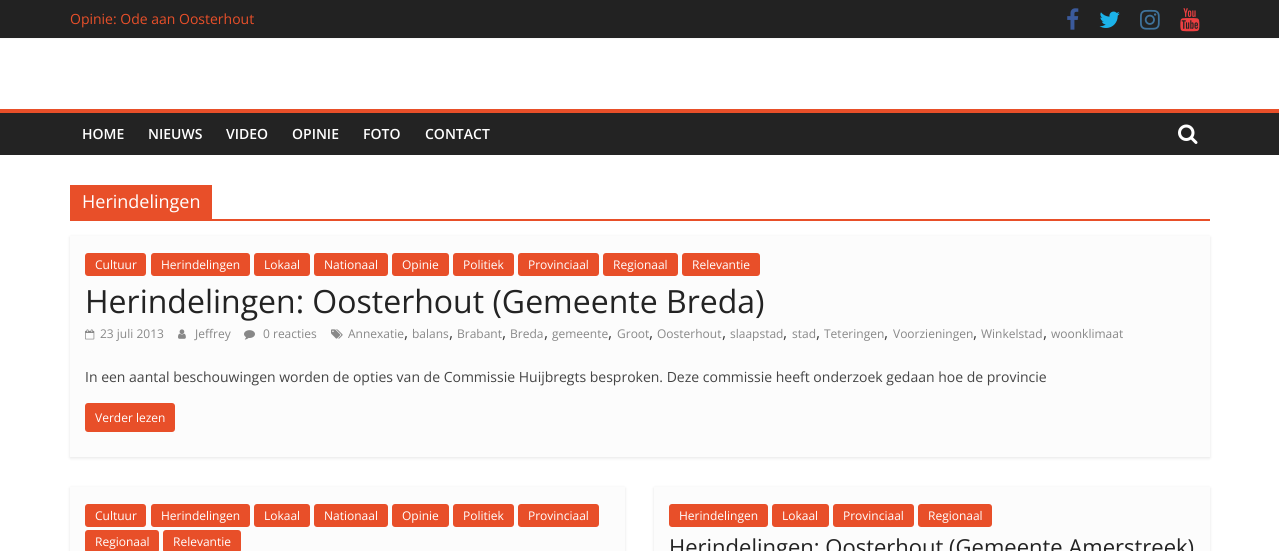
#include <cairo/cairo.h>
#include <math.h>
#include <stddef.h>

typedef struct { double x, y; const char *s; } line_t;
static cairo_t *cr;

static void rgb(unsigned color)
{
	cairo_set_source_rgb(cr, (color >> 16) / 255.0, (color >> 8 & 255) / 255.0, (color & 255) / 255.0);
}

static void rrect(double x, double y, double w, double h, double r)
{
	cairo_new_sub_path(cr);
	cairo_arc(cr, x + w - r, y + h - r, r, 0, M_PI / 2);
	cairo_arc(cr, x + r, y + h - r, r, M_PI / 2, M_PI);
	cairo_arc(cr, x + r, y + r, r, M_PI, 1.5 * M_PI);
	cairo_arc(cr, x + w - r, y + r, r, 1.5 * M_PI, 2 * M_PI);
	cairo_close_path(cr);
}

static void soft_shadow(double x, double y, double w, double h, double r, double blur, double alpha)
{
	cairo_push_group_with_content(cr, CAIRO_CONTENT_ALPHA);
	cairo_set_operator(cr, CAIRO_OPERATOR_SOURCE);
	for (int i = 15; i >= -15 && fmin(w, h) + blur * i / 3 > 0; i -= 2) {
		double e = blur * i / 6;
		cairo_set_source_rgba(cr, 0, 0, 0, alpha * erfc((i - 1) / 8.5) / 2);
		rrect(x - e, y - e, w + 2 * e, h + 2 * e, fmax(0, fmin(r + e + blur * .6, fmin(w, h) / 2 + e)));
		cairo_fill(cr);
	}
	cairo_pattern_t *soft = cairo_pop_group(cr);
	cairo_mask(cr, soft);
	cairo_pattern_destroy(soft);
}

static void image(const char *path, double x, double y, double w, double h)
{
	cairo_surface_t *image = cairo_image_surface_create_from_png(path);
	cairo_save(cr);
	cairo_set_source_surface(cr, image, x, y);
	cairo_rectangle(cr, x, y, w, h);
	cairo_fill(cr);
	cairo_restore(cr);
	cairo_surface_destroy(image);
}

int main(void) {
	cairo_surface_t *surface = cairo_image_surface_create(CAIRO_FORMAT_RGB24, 1279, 551);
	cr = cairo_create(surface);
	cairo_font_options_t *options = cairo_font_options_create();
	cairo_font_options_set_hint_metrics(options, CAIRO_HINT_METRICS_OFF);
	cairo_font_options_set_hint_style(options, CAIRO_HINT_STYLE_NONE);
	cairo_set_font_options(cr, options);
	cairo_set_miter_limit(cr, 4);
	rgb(0xffffff);
	cairo_paint(cr);
	rgb(0x000000);
	soft_shadow(0, 0, 1279, 38, 0, 1, 0.1);
	rgb(0x222222);
	cairo_rectangle(cr, 0, 0, 1279, 38);
	cairo_fill(cr);
	image("img/1.png", 1067, 8, 12, 22);
	image("img/2.png", 1099, 11, 21, 17);
	image("img/3.png", 1140, 9, 20, 21);
	image("img/4.png", 1180, 8, 20, 24);
	rgb(0x232323);
	cairo_rectangle(cr, 0, 113, 1279, 42);
	cairo_fill(cr);
	rgb(0xe84f29);
	cairo_rectangle(cr, 0, 109, 1279, 4);
	cairo_fill(cr);
	image("img/5.png", 1178, 124, 20, 20);
	cairo_rectangle(cr, 70, 219, 1140, 2);
	cairo_fill(cr);
	cairo_rectangle(cr, 70, 185, 142, 34);
	cairo_fill(cr);
	rgb(0x000000);
	soft_shadow(70, 237, 1140, 221, 0, 1.5, 0.1);
	rgb(0xfcfcfc);
	cairo_rectangle(cr, 70, 236, 1140, 221);
	cairo_fill(cr);
	rgb(0xe84f29);
	rrect(85, 253, 61, 23, 3);
	cairo_fill(cr);
	rrect(151, 253, 99, 23, 3);
	cairo_fill(cr);
	rrect(254, 253, 56, 23, 3);
	cairo_fill(cr);
	rrect(314, 253, 74, 23, 3);
	cairo_fill(cr);
	rrect(392, 253, 57, 23, 3);
	cairo_fill(cr);
	rrect(453, 253, 61, 23, 3);
	cairo_fill(cr);
	rrect(518, 253, 81, 23, 3);
	cairo_fill(cr);
	rrect(603, 253, 75, 23, 3);
	cairo_fill(cr);
	rrect(682, 253, 78, 23, 3);
	cairo_fill(cr);
	image("img/6.png", 85, 329, 10, 11);
	image("img/7.png", 178, 329, 8, 10);
	image("img/8.png", 244, 330, 11, 10);
	image("img/9.png", 331, 329, 12, 10);
	rrect(85, 403, 90, 29, 3);
	cairo_fill(cr);
	rgb(0x000000);
	soft_shadow(70, 488, 555, 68, 0, 1.5, 0.1);
	rgb(0xfcfcfc);
	cairo_rectangle(cr, 70, 487, 555, 64);
	cairo_fill(cr);
	rgb(0xe84f29);
	rrect(85, 504, 61, 23, 3);
	cairo_fill(cr);
	rrect(151, 504, 99, 23, 3);
	cairo_fill(cr);
	rrect(254, 504, 56, 23, 3);
	cairo_fill(cr);
	rrect(314, 504, 74, 23, 3);
	cairo_fill(cr);
	rrect(392, 504, 57, 23, 3);
	cairo_fill(cr);
	rrect(453, 504, 61, 23, 3);
	cairo_fill(cr);
	rrect(518, 504, 81, 23, 3);
	cairo_fill(cr);
	rrect(85, 530, 74, 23, 3);
	cairo_fill(cr);
	rrect(163, 530, 78, 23, 3);
	cairo_fill(cr);
	rgb(0x000000);
	soft_shadow(654, 488, 556, 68, 0, 1.5, 0.1);
	rgb(0xfcfcfc);
	cairo_rectangle(cr, 654, 487, 556, 64);
	cairo_fill(cr);
	rgb(0xe84f29);
	rrect(669, 504, 99, 23, 3);
	cairo_fill(cr);
	rrect(772, 504, 57, 23, 3);
	cairo_fill(cr);
	rrect(833, 504, 81, 23, 3);
	cairo_fill(cr);
	rrect(918, 504, 74, 23, 3);
	cairo_fill(cr);
	cairo_select_font_face(cr, "Open Sans", CAIRO_FONT_SLANT_NORMAL, CAIRO_FONT_WEIGHT_NORMAL);
	cairo_set_font_size(cr, 14);
	cairo_move_to(cr, 70, 24);
	cairo_show_text(cr, "Opinie: Ode aan Oosterhout");
	cairo_select_font_face(cr, "Open Sans SemiBold", CAIRO_FONT_SLANT_NORMAL, CAIRO_FONT_WEIGHT_NORMAL);
	rgb(0xffffff);
	{
		static const line_t items[] = {
			{82, 139, "HOME"},
			{148, 139, "NIEUWS"},
			{226, 139, "VIDEO"},
			{292, 139, "OPINIE"},
			{363, 139, "FOTO"},
			{425, 139, "CONTACT"},
		};
		for (size_t i = 0; i < sizeof items / sizeof *items; i++) {
			cairo_move_to(cr, items[i].x, items[i].y);
			cairo_show_text(cr, items[i].s);
		}
	}
	cairo_select_font_face(cr, "Open Sans", CAIRO_FONT_SLANT_NORMAL, CAIRO_FONT_WEIGHT_NORMAL);
	cairo_set_font_size(cr, 18);
	cairo_move_to(cr, 82, 208);
	cairo_show_text(cr, "Herindelingen");
	cairo_set_font_size(cr, 12);
	{
		static const line_t items[] = {
			{95, 269, "Cultuur"},
			{161, 269, "Herindelingen"},
			{264, 269, "Lokaal"},
			{324, 269, "Nationaal"},
			{402, 269, "Opinie"},
			{463, 269, "Politiek"},
			{528, 269, "Provinciaal"},
			{613, 269, "Regionaal"},
			{692, 269, "Relevantie"},
		};
		for (size_t i = 0; i < sizeof items / sizeof *items; i++) {
			cairo_move_to(cr, items[i].x, items[i].y);
			cairo_show_text(cr, items[i].s);
		}
	}
	cairo_set_font_size(cr, 32);
	rgb(0x232323);
	cairo_move_to(cr, 85, 313);
	cairo_show_text(cr, "Herindelingen: Oosterhout (Gemeente Breda)");
	cairo_set_font_size(cr, 12);
	rgb(0x888888);
	{
		static const line_t items[] = {
			{100, 338, "23 juli 2013"},
			{195, 338, "Jeffrey"},
			{263, 338, "0 reacties"},
			{348, 338, "Annexatie"},
		};
		for (size_t i = 0; i < sizeof items / sizeof *items; i++) {
			cairo_move_to(cr, items[i].x, items[i].y);
			cairo_show_text(cr, items[i].s);
		}
	}
	cairo_set_font_size(cr, 16);
	rgb(0x444444);
	cairo_move_to(cr, 404, 338);
	cairo_show_text(cr, ",");
	cairo_set_font_size(cr, 12);
	rgb(0x888888);
	cairo_move_to(cr, 412, 338);
	cairo_show_text(cr, "balans");
	cairo_set_font_size(cr, 16);
	rgb(0x444444);
	cairo_move_to(cr, 449, 338);
	cairo_show_text(cr, ",");
	cairo_set_font_size(cr, 12);
	rgb(0x888888);
	cairo_move_to(cr, 457, 338);
	cairo_show_text(cr, "Brabant");
	cairo_set_font_size(cr, 16);
	rgb(0x444444);
	cairo_move_to(cr, 502, 338);
	cairo_show_text(cr, ",");
	cairo_set_font_size(cr, 12);
	rgb(0x888888);
	cairo_move_to(cr, 510, 338);
	cairo_show_text(cr, "Breda");
	cairo_set_font_size(cr, 16);
	rgb(0x444444);
	cairo_move_to(cr, 544, 338);
	cairo_show_text(cr, ",");
	cairo_set_font_size(cr, 12);
	rgb(0x888888);
	cairo_move_to(cr, 552, 338);
	cairo_show_text(cr, "gemeente");
	cairo_set_font_size(cr, 16);
	rgb(0x444444);
	cairo_move_to(cr, 608, 338);
	cairo_show_text(cr, ",");
	cairo_set_font_size(cr, 12);
	rgb(0x888888);
	cairo_move_to(cr, 617, 338);
	cairo_show_text(cr, "Groot");
	cairo_set_font_size(cr, 16);
	rgb(0x444444);
	cairo_move_to(cr, 649, 338);
	cairo_show_text(cr, ",");
	cairo_set_font_size(cr, 12);
	rgb(0x888888);
	cairo_move_to(cr, 657, 338);
	cairo_show_text(cr, "Oosterhout");
	cairo_set_font_size(cr, 16);
	rgb(0x444444);
	cairo_move_to(cr, 722, 338);
	cairo_show_text(cr, ",");
	cairo_set_font_size(cr, 12);
	rgb(0x888888);
	cairo_move_to(cr, 730, 338);
	cairo_show_text(cr, "slaapstad");
	cairo_set_font_size(cr, 16);
	rgb(0x444444);
	cairo_move_to(cr, 783, 338);
	cairo_show_text(cr, ",");
	cairo_set_font_size(cr, 12);
	rgb(0x888888);
	cairo_move_to(cr, 792, 338);
	cairo_show_text(cr, "stad");
	cairo_set_font_size(cr, 16);
	rgb(0x444444);
	cairo_move_to(cr, 816, 338);
	cairo_show_text(cr, ",");
	cairo_set_font_size(cr, 12);
	rgb(0x888888);
	cairo_move_to(cr, 824, 338);
	cairo_show_text(cr, "Teteringen");
	cairo_set_font_size(cr, 16);
	rgb(0x444444);
	cairo_move_to(cr, 884, 338);
	cairo_show_text(cr, ",");
	cairo_set_font_size(cr, 12);
	rgb(0x888888);
	cairo_move_to(cr, 893, 338);
	cairo_show_text(cr, "Voorzieningen");
	cairo_set_font_size(cr, 16);
	rgb(0x444444);
	cairo_move_to(cr, 973, 338);
	cairo_show_text(cr, ",");
	cairo_set_font_size(cr, 12);
	rgb(0x888888);
	cairo_move_to(cr, 981, 338);
	cairo_show_text(cr, "Winkelstad");
	cairo_set_font_size(cr, 16);
	rgb(0x444444);
	cairo_move_to(cr, 1043, 338);
	cairo_show_text(cr, ",");
	cairo_set_font_size(cr, 12);
	rgb(0x888888);
	cairo_move_to(cr, 1051, 338);
	cairo_show_text(cr, "woonklimaat");
	cairo_set_font_size(cr, 14);
	rgb(0x444444);
	cairo_move_to(cr, 85, 382);
	cairo_show_text(cr, "In een aantal beschouwingen worden de opties van de Commissie Huijbregts besproken. Deze commissie heeft onderzoek gedaan hoe de provincie");
	cairo_set_font_size(cr, 12);
	rgb(0xffffff);
	{
		static const line_t items[] = {
			{95, 422, "Verder lezen"},
			{95, 520, "Cultuur"},
			{161, 520, "Herindelingen"},
			{264, 520, "Lokaal"},
			{324, 520, "Nationaal"},
			{402, 520, "Opinie"},
			{463, 520, "Politiek"},
			{528, 520, "Provinciaal"},
			{95, 546, "Regionaal"},
			{173, 546, "Relevantie"},
			{679, 520, "Herindelingen"},
			{782, 520, "Lokaal"},
			{843, 520, "Provinciaal"},
			{928, 520, "Regionaal"},
		};
		for (size_t i = 0; i < sizeof items / sizeof *items; i++) {
			cairo_move_to(cr, items[i].x, items[i].y);
			cairo_show_text(cr, items[i].s);
		}
	}
	cairo_set_font_size(cr, 22);
	rgb(0x232323);
	cairo_move_to(cr, 669, 555);
	cairo_show_text(cr, "Herindelingen: Oosterhout (Gemeente Amerstreek)");
	cairo_surface_write_to_png(surface, "page.png");
	cairo_font_options_destroy(options);
	cairo_destroy(cr);
	cairo_surface_destroy(surface);
	return 0;
}
